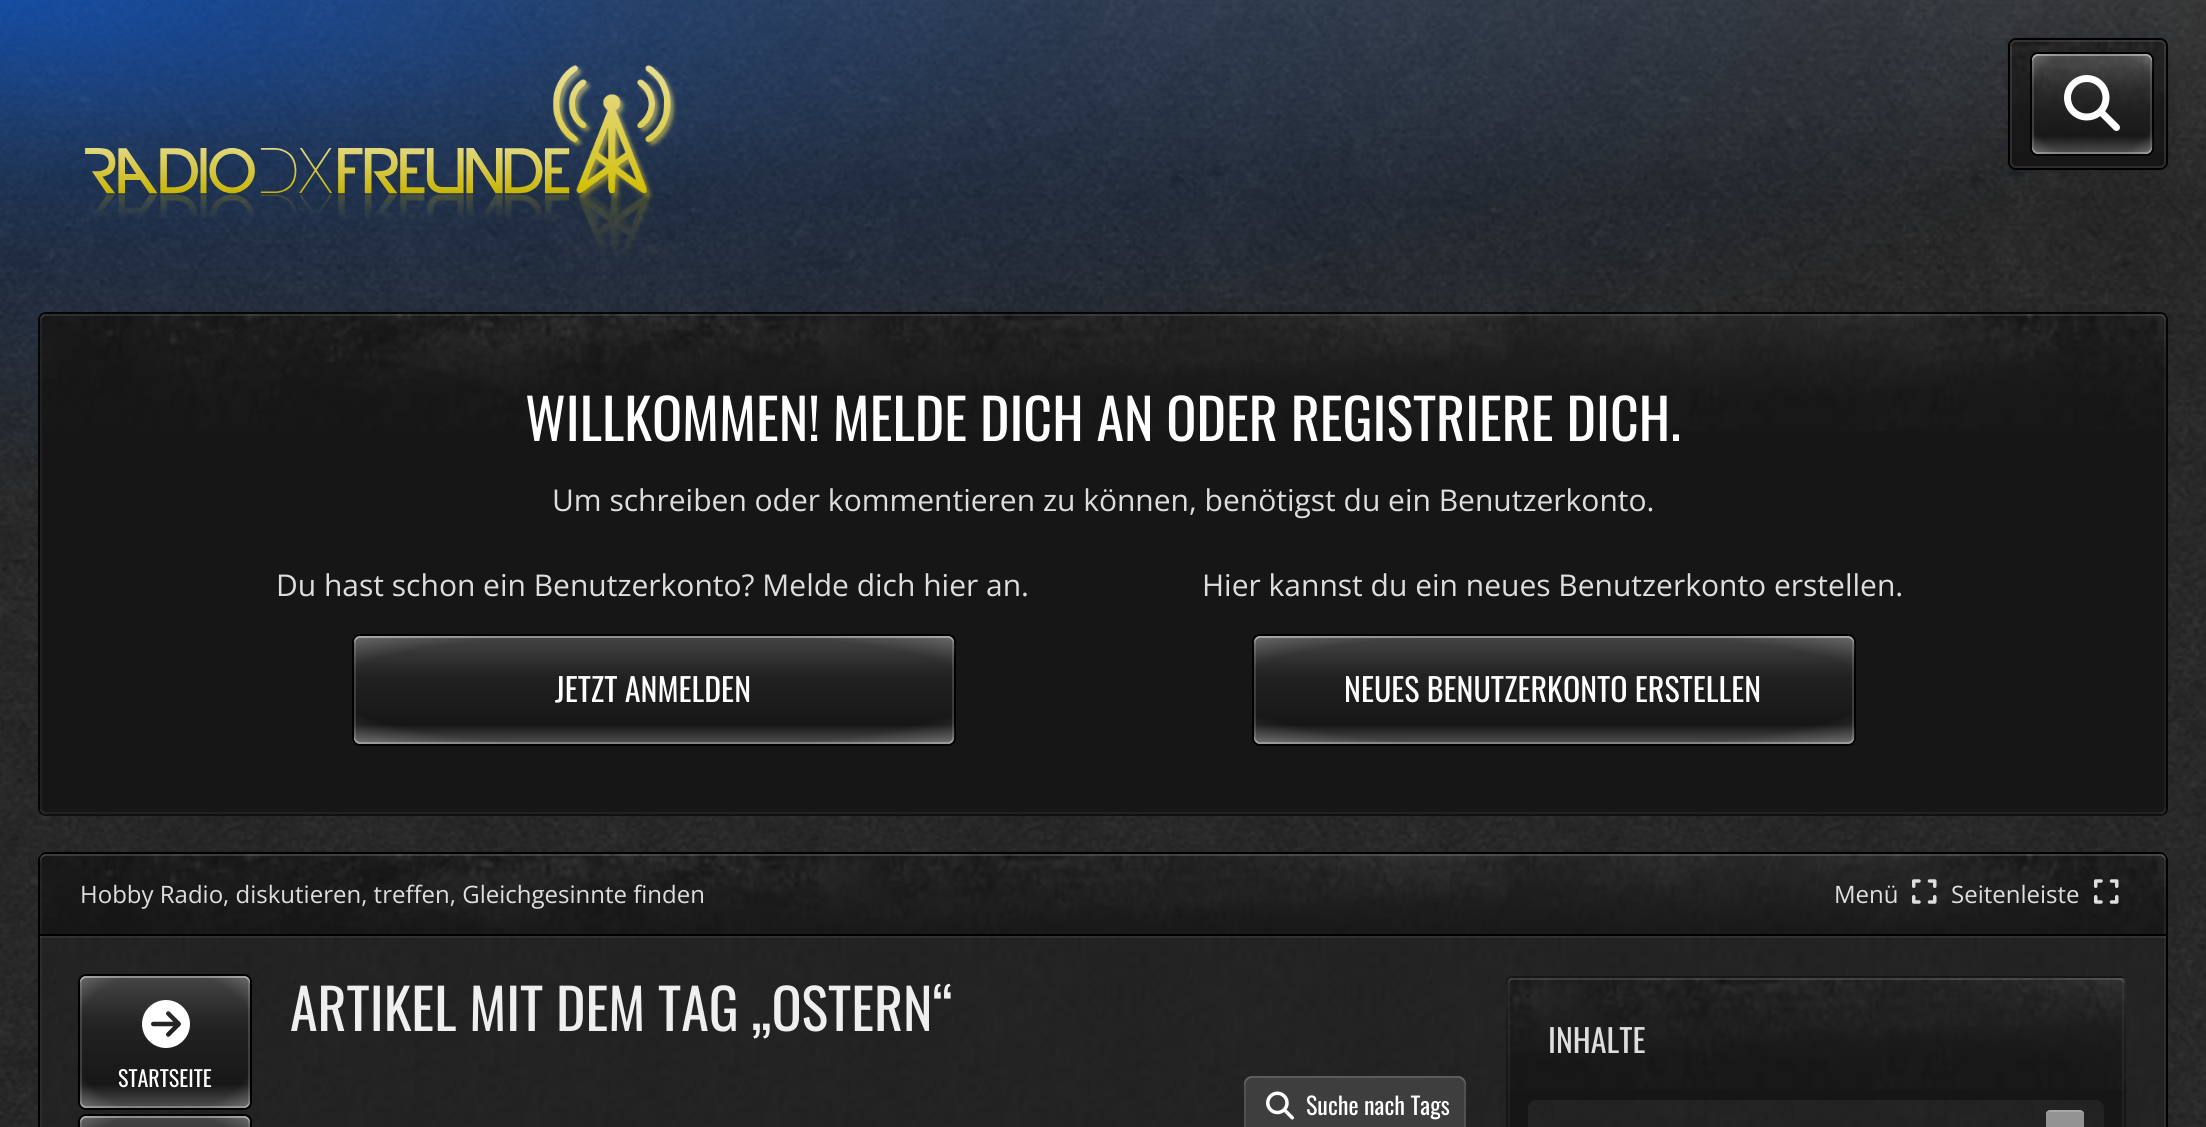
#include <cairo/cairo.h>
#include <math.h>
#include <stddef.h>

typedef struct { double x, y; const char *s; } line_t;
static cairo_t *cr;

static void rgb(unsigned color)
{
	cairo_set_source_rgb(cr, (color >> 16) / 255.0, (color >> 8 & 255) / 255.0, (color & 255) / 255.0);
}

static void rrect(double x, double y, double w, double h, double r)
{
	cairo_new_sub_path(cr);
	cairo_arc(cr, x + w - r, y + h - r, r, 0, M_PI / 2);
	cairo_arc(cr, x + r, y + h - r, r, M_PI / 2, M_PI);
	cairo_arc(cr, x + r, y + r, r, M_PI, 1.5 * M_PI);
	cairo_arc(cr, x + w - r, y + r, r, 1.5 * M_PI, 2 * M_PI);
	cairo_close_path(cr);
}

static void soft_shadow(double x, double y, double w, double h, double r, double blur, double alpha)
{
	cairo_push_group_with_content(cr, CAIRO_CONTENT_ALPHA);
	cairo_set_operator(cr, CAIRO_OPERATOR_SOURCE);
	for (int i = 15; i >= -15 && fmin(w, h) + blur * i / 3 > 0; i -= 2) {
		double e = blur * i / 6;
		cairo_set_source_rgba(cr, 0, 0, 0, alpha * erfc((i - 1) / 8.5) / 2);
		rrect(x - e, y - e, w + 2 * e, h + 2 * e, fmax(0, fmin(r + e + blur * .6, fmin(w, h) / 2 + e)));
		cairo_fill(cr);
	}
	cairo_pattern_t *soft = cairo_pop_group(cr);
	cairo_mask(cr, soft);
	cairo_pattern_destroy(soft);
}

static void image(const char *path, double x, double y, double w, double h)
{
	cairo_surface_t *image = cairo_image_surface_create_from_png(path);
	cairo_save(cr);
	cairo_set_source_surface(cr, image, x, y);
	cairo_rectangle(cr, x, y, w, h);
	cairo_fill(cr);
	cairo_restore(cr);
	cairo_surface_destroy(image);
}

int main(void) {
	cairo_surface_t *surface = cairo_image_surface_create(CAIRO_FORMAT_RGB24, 2206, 1127);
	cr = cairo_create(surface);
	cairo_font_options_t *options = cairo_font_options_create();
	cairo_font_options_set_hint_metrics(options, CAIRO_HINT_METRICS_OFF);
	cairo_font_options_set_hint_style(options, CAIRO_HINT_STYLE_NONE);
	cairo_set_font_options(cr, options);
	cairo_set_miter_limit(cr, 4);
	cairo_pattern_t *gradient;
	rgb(0xffffff);
	cairo_paint(cr);
	image("img/1.png", 0, 0, 2206, 1127);
	image("img/2.png", 85, 64, 592, 190);
	rgb(0x000000);
	soft_shadow(2010, 40, 156, 128, 6, 5, 0.25);
	rrect(2009, 39, 158, 130, 7);
	rgb(0x000000);
	cairo_stroke(cr);
	rgb(0x161616);
	rrect(2010, 40, 156, 128, 6);
	cairo_fill(cr);
	image("img/3.png", 2010, 40, 156, 112);
	rrect(2011, 41, 154, 126, 5);
	cairo_set_source_rgba(cr, 1, 1, 1, 0.1);
	cairo_stroke(cr);
	rrect(2031, 53, 122, 102, 7);
	rgb(0x000000);
	cairo_stroke(cr);
	gradient = cairo_pattern_create_linear(2092, 54, 2092, 154);
	cairo_pattern_add_color_stop_rgba(gradient, 0, 1, 1, 1, 0.2);
	cairo_pattern_add_color_stop_rgba(gradient, 0.37, 1, 1, 1, 0.05);
	cairo_pattern_add_color_stop_rgba(gradient, 0.82, 1, 1, 1, 0);
	cairo_pattern_add_color_stop_rgba(gradient, 1, 1, 1, 1, 0.25);
	cairo_set_source(cr, gradient);
	cairo_pattern_destroy(gradient);
	rrect(2032, 54, 120, 100, 6);
	cairo_fill(cr);
	gradient = cairo_pattern_create_radial(0, 0, 0, 0, 0, 1);
	cairo_pattern_set_matrix(gradient, &(cairo_matrix_t){1.0 / 85, 0, 0, 1.0 / 71, -1.0 * 2092 / 85, -1.0 * 104 / 71});
	cairo_pattern_add_color_stop_rgba(gradient, 0, 0, 0, 0, 0);
	cairo_pattern_add_color_stop_rgba(gradient, 0.77, 1, 1, 1, 0);
	cairo_pattern_add_color_stop_rgba(gradient, 1, 1, 1, 1, 0.2);
	cairo_set_source(cr, gradient);
	cairo_pattern_destroy(gradient);
	rrect(2032, 54, 120, 100, 6);
	cairo_fill(cr);
	cairo_set_source_rgba(cr, 1, 1, 1, 0.15);
	cairo_new_path(cr);
	cairo_move_to(cr, 2144, 154);
	cairo_curve_to(cr, 2156, 154, 2152, 142, 2152, 133);
	cairo_line_to(cr, 2152, 75);
	cairo_curve_to(cr, 2152, 66, 2156, 54, 2144, 54);
	cairo_curve_to(cr, 2147, 54, 2150, 57, 2150, 60);
	cairo_line_to(cr, 2150, 148);
	cairo_curve_to(cr, 2150, 151, 2147, 154, 2144, 154);
	cairo_close_path(cr);
	cairo_fill(cr);
	cairo_new_path(cr);
	cairo_move_to(cr, 2038, 54);
	cairo_curve_to(cr, 2035, 54, 2032, 57, 2032, 60);
	cairo_line_to(cr, 2032, 148);
	cairo_curve_to(cr, 2032, 151, 2035, 154, 2038, 154);
	cairo_line_to(cr, 2040, 154);
	cairo_curve_to(cr, 2037, 154, 2034, 151, 2034, 148);
	cairo_line_to(cr, 2034, 60);
	cairo_curve_to(cr, 2034, 57, 2037, 54, 2040, 54);
	cairo_close_path(cr);
	cairo_fill(cr);
	cairo_set_source_rgba(cr, 1, 1, 1, 0.3);
	cairo_new_path(cr);
	cairo_move_to(cr, 2032, 146);
	cairo_line_to(cr, 2032, 148);
	cairo_curve_to(cr, 2032, 151, 2035, 154, 2038, 154);
	cairo_line_to(cr, 2146, 154);
	cairo_curve_to(cr, 2149, 154, 2152, 151, 2152, 148);
	cairo_line_to(cr, 2152, 146);
	cairo_curve_to(cr, 2152, 149, 2149, 152, 2146, 152);
	cairo_line_to(cr, 2038, 152);
	cairo_curve_to(cr, 2035, 152, 2032, 149, 2032, 146);
	cairo_close_path(cr);
	cairo_fill(cr);
	cairo_set_source_rgba(cr, 1, 1, 1, 0.4);
	cairo_new_path(cr);
	cairo_move_to(cr, 2038, 56);
	cairo_line_to(cr, 2146, 56);
	cairo_curve_to(cr, 2149, 56, 2152, 59, 2152, 62);
	cairo_line_to(cr, 2152, 60);
	cairo_curve_to(cr, 2152, 57, 2149, 54, 2146, 54);
	cairo_line_to(cr, 2038, 54);
	cairo_curve_to(cr, 2035, 54, 2032, 57, 2032, 60);
	cairo_line_to(cr, 2032, 62);
	cairo_curve_to(cr, 2032, 59, 2035, 56, 2038, 56);
	cairo_close_path(cr);
	cairo_fill(cr);
	image("img/4.png", 2064, 75, 56, 56);
	rrect(39, 313, 2128, 502, 7);
	cairo_set_source_rgba(cr, 0, 0, 0, 0.9);
	cairo_stroke(cr);
	rgb(0x161616);
	rrect(40, 314, 2126, 500, 6);
	cairo_fill(cr);
	image("img/5.png", 40, 314, 2126, 117);
	cairo_set_source_rgba(cr, 1, 1, 1, 0.05);
	cairo_new_path(cr);
	cairo_move_to(cr, 40, 808);
	cairo_curve_to(cr, 40, 812, 41, 816, 46, 816);
	cairo_line_to(cr, 2160, 816);
	cairo_curve_to(cr, 2165, 816, 2166, 812, 2166, 808);
	cairo_curve_to(cr, 2166, 811, 2163, 814, 2160, 814);
	cairo_line_to(cr, 46, 814);
	cairo_curve_to(cr, 43, 814, 40, 811, 40, 808);
	cairo_close_path(cr);
	cairo_fill(cr);
	cairo_new_path(cr);
	cairo_move_to(cr, 2158, 814);
	cairo_curve_to(cr, 2162, 814, 2166, 813, 2166, 808);
	cairo_line_to(cr, 2166, 320);
	cairo_curve_to(cr, 2166, 315, 2162, 314, 2158, 314);
	cairo_curve_to(cr, 2161, 314, 2164, 317, 2164, 320);
	cairo_line_to(cr, 2164, 808);
	cairo_curve_to(cr, 2164, 811, 2161, 814, 2158, 814);
	cairo_close_path(cr);
	cairo_fill(cr);
	cairo_new_path(cr);
	cairo_move_to(cr, 46, 314);
	cairo_curve_to(cr, 43, 314, 40, 317, 40, 320);
	cairo_line_to(cr, 40, 808);
	cairo_curve_to(cr, 40, 813, 44, 814, 48, 814);
	cairo_curve_to(cr, 45, 814, 42, 811, 42, 808);
	cairo_line_to(cr, 42, 320);
	cairo_curve_to(cr, 42, 317, 45, 314, 48, 314);
	cairo_close_path(cr);
	cairo_fill(cr);
	cairo_new_path(cr);
	cairo_move_to(cr, 40, 806);
	cairo_curve_to(cr, 40, 810, 41, 814, 46, 814);
	cairo_line_to(cr, 2160, 814);
	cairo_curve_to(cr, 2165, 814, 2166, 810, 2166, 806);
	cairo_curve_to(cr, 2166, 809, 2163, 812, 2160, 812);
	cairo_line_to(cr, 46, 812);
	cairo_curve_to(cr, 43, 812, 40, 809, 40, 806);
	cairo_close_path(cr);
	cairo_fill(cr);
	cairo_set_source_rgba(cr, 1, 1, 1, 0.1);
	cairo_new_path(cr);
	cairo_move_to(cr, 46, 316);
	cairo_line_to(cr, 2160, 316);
	cairo_curve_to(cr, 2163, 316, 2166, 319, 2166, 322);
	cairo_curve_to(cr, 2166, 318, 2165, 314, 2160, 314);
	cairo_line_to(cr, 46, 314);
	cairo_curve_to(cr, 41, 314, 40, 318, 40, 322);
	cairo_curve_to(cr, 40, 319, 43, 316, 46, 316);
	cairo_close_path(cr);
	cairo_fill(cr);
	rrect(353, 635, 602, 110, 7);
	rgb(0x000000);
	cairo_stroke(cr);
	gradient = cairo_pattern_create_linear(654, 636, 654, 744);
	cairo_pattern_add_color_stop_rgba(gradient, 0, 1, 1, 1, 0.2);
	cairo_pattern_add_color_stop_rgba(gradient, 0.37, 1, 1, 1, 0.05);
	cairo_pattern_add_color_stop_rgba(gradient, 0.82, 1, 1, 1, 0);
	cairo_pattern_add_color_stop_rgba(gradient, 1, 1, 1, 1, 0.25);
	cairo_set_source(cr, gradient);
	cairo_pattern_destroy(gradient);
	rrect(354, 636, 600, 108, 6);
	cairo_fill(cr);
	gradient = cairo_pattern_create_radial(0, 0, 0, 0, 0, 1);
	cairo_pattern_set_matrix(gradient, &(cairo_matrix_t){1.0 / 424, 0, 0, 1.0 / 76, -1.0 * 654 / 424, -1.0 * 690 / 76});
	cairo_pattern_add_color_stop_rgba(gradient, 0, 0, 0, 0, 0);
	cairo_pattern_add_color_stop_rgba(gradient, 0.77, 1, 1, 1, 0);
	cairo_pattern_add_color_stop_rgba(gradient, 1, 1, 1, 1, 0.2);
	cairo_set_source(cr, gradient);
	cairo_pattern_destroy(gradient);
	rrect(354, 636, 600, 108, 6);
	cairo_fill(cr);
	cairo_set_source_rgba(cr, 1, 1, 1, 0.15);
	cairo_new_path(cr);
	cairo_move_to(cr, 946, 744);
	cairo_curve_to(cr, 958, 744, 954, 731, 954, 722);
	cairo_line_to(cr, 954, 658);
	cairo_curve_to(cr, 954, 649, 958, 636, 946, 636);
	cairo_curve_to(cr, 949, 636, 952, 639, 952, 642);
	cairo_line_to(cr, 952, 738);
	cairo_curve_to(cr, 952, 741, 949, 744, 946, 744);
	cairo_close_path(cr);
	cairo_fill(cr);
	cairo_new_path(cr);
	cairo_move_to(cr, 360, 636);
	cairo_curve_to(cr, 357, 636, 354, 639, 354, 642);
	cairo_line_to(cr, 354, 738);
	cairo_curve_to(cr, 354, 741, 357, 744, 360, 744);
	cairo_line_to(cr, 362, 744);
	cairo_curve_to(cr, 359, 744, 356, 741, 356, 738);
	cairo_line_to(cr, 356, 642);
	cairo_curve_to(cr, 356, 639, 359, 636, 362, 636);
	cairo_close_path(cr);
	cairo_fill(cr);
	cairo_set_source_rgba(cr, 1, 1, 1, 0.3);
	cairo_new_path(cr);
	cairo_move_to(cr, 354, 736);
	cairo_line_to(cr, 354, 738);
	cairo_curve_to(cr, 354, 741, 357, 744, 360, 744);
	cairo_line_to(cr, 948, 744);
	cairo_curve_to(cr, 951, 744, 954, 741, 954, 738);
	cairo_line_to(cr, 954, 736);
	cairo_curve_to(cr, 954, 739, 951, 742, 948, 742);
	cairo_line_to(cr, 360, 742);
	cairo_curve_to(cr, 357, 742, 354, 739, 354, 736);
	cairo_close_path(cr);
	cairo_fill(cr);
	cairo_set_source_rgba(cr, 1, 1, 1, 0.4);
	cairo_new_path(cr);
	cairo_move_to(cr, 360, 638);
	cairo_line_to(cr, 948, 638);
	cairo_curve_to(cr, 951, 638, 954, 641, 954, 644);
	cairo_line_to(cr, 954, 642);
	cairo_curve_to(cr, 954, 639, 951, 636, 948, 636);
	cairo_line_to(cr, 360, 636);
	cairo_curve_to(cr, 357, 636, 354, 639, 354, 642);
	cairo_line_to(cr, 354, 644);
	cairo_curve_to(cr, 354, 641, 357, 638, 360, 638);
	cairo_close_path(cr);
	cairo_fill(cr);
	rrect(1253, 635, 602, 110, 7);
	rgb(0x000000);
	cairo_stroke(cr);
	gradient = cairo_pattern_create_linear(1554, 636, 1554, 744);
	cairo_pattern_add_color_stop_rgba(gradient, 0, 1, 1, 1, 0.2);
	cairo_pattern_add_color_stop_rgba(gradient, 0.37, 1, 1, 1, 0.05);
	cairo_pattern_add_color_stop_rgba(gradient, 0.82, 1, 1, 1, 0);
	cairo_pattern_add_color_stop_rgba(gradient, 1, 1, 1, 1, 0.25);
	cairo_set_source(cr, gradient);
	cairo_pattern_destroy(gradient);
	rrect(1254, 636, 600, 108, 6);
	cairo_fill(cr);
	gradient = cairo_pattern_create_radial(0, 0, 0, 0, 0, 1);
	cairo_pattern_set_matrix(gradient, &(cairo_matrix_t){1.0 / 424, 0, 0, 1.0 / 76, -1.0 * 1554 / 424, -1.0 * 690 / 76});
	cairo_pattern_add_color_stop_rgba(gradient, 0, 0, 0, 0, 0);
	cairo_pattern_add_color_stop_rgba(gradient, 0.77, 1, 1, 1, 0);
	cairo_pattern_add_color_stop_rgba(gradient, 1, 1, 1, 1, 0.2);
	cairo_set_source(cr, gradient);
	cairo_pattern_destroy(gradient);
	rrect(1254, 636, 600, 108, 6);
	cairo_fill(cr);
	cairo_set_source_rgba(cr, 1, 1, 1, 0.15);
	cairo_new_path(cr);
	cairo_move_to(cr, 1846, 744);
	cairo_curve_to(cr, 1858, 744, 1854, 731, 1854, 722);
	cairo_line_to(cr, 1854, 658);
	cairo_curve_to(cr, 1854, 649, 1858, 636, 1846, 636);
	cairo_curve_to(cr, 1849, 636, 1852, 639, 1852, 642);
	cairo_line_to(cr, 1852, 738);
	cairo_curve_to(cr, 1852, 741, 1849, 744, 1846, 744);
	cairo_close_path(cr);
	cairo_fill(cr);
	cairo_new_path(cr);
	cairo_move_to(cr, 1260, 636);
	cairo_curve_to(cr, 1257, 636, 1254, 639, 1254, 642);
	cairo_line_to(cr, 1254, 738);
	cairo_curve_to(cr, 1254, 741, 1257, 744, 1260, 744);
	cairo_line_to(cr, 1262, 744);
	cairo_curve_to(cr, 1259, 744, 1256, 741, 1256, 738);
	cairo_line_to(cr, 1256, 642);
	cairo_curve_to(cr, 1256, 639, 1259, 636, 1262, 636);
	cairo_close_path(cr);
	cairo_fill(cr);
	cairo_set_source_rgba(cr, 1, 1, 1, 0.3);
	cairo_new_path(cr);
	cairo_move_to(cr, 1254, 736);
	cairo_line_to(cr, 1254, 738);
	cairo_curve_to(cr, 1254, 741, 1257, 744, 1260, 744);
	cairo_line_to(cr, 1848, 744);
	cairo_curve_to(cr, 1851, 744, 1854, 741, 1854, 738);
	cairo_line_to(cr, 1854, 736);
	cairo_curve_to(cr, 1854, 739, 1851, 742, 1848, 742);
	cairo_line_to(cr, 1260, 742);
	cairo_curve_to(cr, 1257, 742, 1254, 739, 1254, 736);
	cairo_close_path(cr);
	cairo_fill(cr);
	cairo_set_source_rgba(cr, 1, 1, 1, 0.4);
	cairo_new_path(cr);
	cairo_move_to(cr, 1260, 638);
	cairo_line_to(cr, 1848, 638);
	cairo_curve_to(cr, 1851, 638, 1854, 641, 1854, 644);
	cairo_line_to(cr, 1854, 642);
	cairo_curve_to(cr, 1854, 639, 1851, 636, 1848, 636);
	cairo_line_to(cr, 1260, 636);
	cairo_curve_to(cr, 1257, 636, 1254, 639, 1254, 642);
	cairo_line_to(cr, 1254, 644);
	cairo_curve_to(cr, 1254, 641, 1257, 638, 1260, 638);
	cairo_close_path(cr);
	cairo_fill(cr);
	rgb(0x000000);
	cairo_new_path(cr);
	cairo_move_to(cr, 2166, 934);
	cairo_line_to(cr, 2168, 934);
	cairo_line_to(cr, 2168, 860);
	cairo_curve_to(cr, 2168, 857, 2165, 854, 2162, 854);
	cairo_line_to(cr, 2160, 854);
	cairo_curve_to(cr, 2163, 854, 2166, 857, 2166, 860);
	cairo_close_path(cr);
	cairo_fill(cr);
	cairo_new_path(cr);
	cairo_move_to(cr, 44, 854);
	cairo_curve_to(cr, 41, 854, 38, 857, 38, 860);
	cairo_line_to(cr, 38, 934);
	cairo_line_to(cr, 40, 934);
	cairo_line_to(cr, 40, 860);
	cairo_curve_to(cr, 40, 857, 43, 854, 46, 854);
	cairo_close_path(cr);
	cairo_fill(cr);
	cairo_new_path(cr);
	cairo_move_to(cr, 46, 852);
	cairo_curve_to(cr, 41, 852, 40, 856, 40, 860);
	cairo_curve_to(cr, 40, 857, 43, 854, 46, 854);
	cairo_line_to(cr, 2160, 854);
	cairo_curve_to(cr, 2163, 854, 2166, 857, 2166, 860);
	cairo_curve_to(cr, 2166, 856, 2165, 852, 2160, 852);
	cairo_close_path(cr);
	cairo_fill(cr);
	image("img/6.png", 40, 854, 2126, 80);
	cairo_set_source_rgba(cr, 1, 1, 1, 0.05);
	cairo_new_path(cr);
	cairo_move_to(cr, 2164, 934);
	cairo_line_to(cr, 2166, 934);
	cairo_line_to(cr, 2166, 860);
	cairo_curve_to(cr, 2166, 857, 2163, 854, 2160, 854);
	cairo_line_to(cr, 2158, 854);
	cairo_curve_to(cr, 2161, 854, 2164, 857, 2164, 860);
	cairo_close_path(cr);
	cairo_fill(cr);
	cairo_new_path(cr);
	cairo_move_to(cr, 46, 854);
	cairo_curve_to(cr, 43, 854, 40, 857, 40, 860);
	cairo_line_to(cr, 40, 934);
	cairo_line_to(cr, 42, 934);
	cairo_line_to(cr, 42, 860);
	cairo_curve_to(cr, 42, 857, 45, 854, 48, 854);
	cairo_close_path(cr);
	cairo_fill(cr);
	cairo_set_source_rgba(cr, 1, 1, 1, 0.15);
	cairo_new_path(cr);
	cairo_move_to(cr, 46, 856);
	cairo_line_to(cr, 2160, 856);
	cairo_curve_to(cr, 2163, 856, 2166, 859, 2166, 862);
	cairo_curve_to(cr, 2166, 858, 2165, 854, 2160, 854);
	cairo_line_to(cr, 46, 854);
	cairo_curve_to(cr, 41, 854, 40, 858, 40, 862);
	cairo_curve_to(cr, 40, 859, 43, 856, 46, 856);
	cairo_close_path(cr);
	cairo_fill(cr);
	image("img/7.png", 1912, 879, 25, 25);
	image("img/8.png", 2094, 879, 25, 25);
	rgb(0x000000);
	cairo_rectangle(cr, 2166, 934, 2, 193);
	cairo_fill(cr);
	cairo_rectangle(cr, 38, 934, 2, 193);
	cairo_fill(cr);
	image("img/9.png", 40, 936, 2126, 191);
	cairo_set_source_rgba(cr, 1, 1, 1, 0.05);
	cairo_rectangle(cr, 2164, 936, 2, 191);
	cairo_fill(cr);
	cairo_rectangle(cr, 40, 936, 2, 191);
	cairo_fill(cr);
	cairo_set_source_rgba(cr, 1, 1, 1, 0.07);
	cairo_rectangle(cr, 40, 936, 2126, 2);
	cairo_fill(cr);
	rgb(0x000000);
	cairo_rectangle(cr, 40, 934, 2126, 2);
	cairo_fill(cr);
	rgb(0x3e3e3e);
	rrect(1244, 1076, 222, 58, 8);
	cairo_fill(cr);
	cairo_set_source_rgba(cr, 1, 1, 1, 0.1);
	cairo_new_path(cr);
	cairo_move_to(cr, 1252, 1076);
	cairo_curve_to(cr, 1248, 1076, 1244, 1080, 1244, 1084);
	cairo_line_to(cr, 1244, 1126);
	cairo_curve_to(cr, 1244, 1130, 1248, 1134, 1252, 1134);
	cairo_line_to(cr, 1254, 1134);
	cairo_curve_to(cr, 1250, 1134, 1246, 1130, 1246, 1126);
	cairo_line_to(cr, 1246, 1084);
	cairo_curve_to(cr, 1246, 1080, 1250, 1076, 1254, 1076);
	cairo_close_path(cr);
	cairo_fill(cr);
	cairo_new_path(cr);
	cairo_move_to(cr, 1456, 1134);
	cairo_curve_to(cr, 1466, 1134, 1466, 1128, 1466, 1119);
	cairo_line_to(cr, 1466, 1091);
	cairo_curve_to(cr, 1466, 1082, 1466, 1076, 1456, 1076);
	cairo_curve_to(cr, 1460, 1076, 1464, 1080, 1464, 1084);
	cairo_line_to(cr, 1464, 1126);
	cairo_curve_to(cr, 1464, 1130, 1460, 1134, 1456, 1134);
	cairo_close_path(cr);
	cairo_fill(cr);
	cairo_set_source_rgba(cr, 1, 1, 1, 0.15);
	cairo_new_path(cr);
	cairo_move_to(cr, 1252, 1078);
	cairo_line_to(cr, 1458, 1078);
	cairo_curve_to(cr, 1462, 1078, 1466, 1082, 1466, 1086);
	cairo_line_to(cr, 1466, 1084);
	cairo_curve_to(cr, 1466, 1080, 1462, 1076, 1458, 1076);
	cairo_line_to(cr, 1252, 1076);
	cairo_curve_to(cr, 1248, 1076, 1244, 1080, 1244, 1084);
	cairo_line_to(cr, 1244, 1086);
	cairo_curve_to(cr, 1244, 1082, 1248, 1078, 1252, 1078);
	cairo_close_path(cr);
	cairo_fill(cr);
	image("img/10.png", 1266, 1091, 28, 29);
	rgb(0x161616);
	rrect(1506, 976, 620, 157, 6);
	cairo_fill(cr);
	image("img/11.png", 1506, 978, 620, 112);
	cairo_set_source_rgba(cr, 1, 1, 1, 0.05);
	cairo_new_path(cr);
	cairo_move_to(cr, 2118, 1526);
	cairo_line_to(cr, 2120, 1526);
	cairo_curve_to(cr, 2122, 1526, 2124, 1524, 2124, 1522);
	cairo_line_to(cr, 2124, 982);
	cairo_curve_to(cr, 2124, 980, 2122, 978, 2120, 978);
	cairo_line_to(cr, 2118, 978);
	cairo_curve_to(cr, 2120, 978, 2122, 980, 2122, 982);
	cairo_line_to(cr, 2122, 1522);
	cairo_curve_to(cr, 2122, 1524, 2120, 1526, 2118, 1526);
	cairo_close_path(cr);
	cairo_fill(cr);
	cairo_new_path(cr);
	cairo_move_to(cr, 1512, 978);
	cairo_curve_to(cr, 1510, 978, 1508, 980, 1508, 982);
	cairo_line_to(cr, 1508, 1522);
	cairo_curve_to(cr, 1508, 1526, 1511, 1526, 1514, 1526);
	cairo_curve_to(cr, 1512, 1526, 1510, 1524, 1510, 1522);
	cairo_line_to(cr, 1510, 982);
	cairo_curve_to(cr, 1510, 980, 1512, 978, 1514, 978);
	cairo_close_path(cr);
	cairo_fill(cr);
	cairo_set_source_rgba(cr, 1, 1, 1, 0.15);
	cairo_new_path(cr);
	cairo_move_to(cr, 1512, 980);
	cairo_line_to(cr, 2120, 980);
	cairo_curve_to(cr, 2122, 980, 2124, 982, 2124, 984);
	cairo_curve_to(cr, 2124, 981, 2124, 978, 2120, 978);
	cairo_line_to(cr, 1510, 978);
	cairo_line_to(cr, 1509, 980);
	cairo_curve_to(cr, 1508, 981, 1508, 983, 1508, 984);
	cairo_curve_to(cr, 1508, 982, 1510, 980, 1512, 980);
	cairo_close_path(cr);
	cairo_fill(cr);
	image("img/12.png", 1528, 1100, 576, 27);
	rgb(0x939393);
	rrect(2046, 1110, 38, 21, 4);
	cairo_fill(cr);
	cairo_set_source_rgba(cr, 1, 1, 1, 0.2);
	cairo_new_path(cr);
	cairo_move_to(cr, 2050, 1112);
	cairo_line_to(cr, 2080, 1112);
	cairo_curve_to(cr, 2082, 1112, 2084, 1114, 2084, 1116);
	cairo_curve_to(cr, 2084, 1109.5, 2081, 1110, 2075, 1110);
	cairo_line_to(cr, 2055, 1110);
	cairo_curve_to(cr, 2049, 1110, 2046, 1109.5, 2046, 1116);
	cairo_curve_to(cr, 2046, 1114, 2048, 1112, 2050, 1112);
	cairo_close_path(cr);
	cairo_fill(cr);
	rgb(0x171717);
	rrect(79, 975, 172, 134, 7);
	cairo_fill_preserve(cr);
	rgb(0x000000);
	cairo_stroke(cr);
	gradient = cairo_pattern_create_linear(165, 976, 165, 1108);
	cairo_pattern_add_color_stop_rgba(gradient, 0, 1, 1, 1, 0.2);
	cairo_pattern_add_color_stop_rgba(gradient, 0.37, 1, 1, 1, 0.05);
	cairo_pattern_add_color_stop_rgba(gradient, 0.82, 1, 1, 1, 0);
	cairo_pattern_add_color_stop_rgba(gradient, 1, 1, 1, 1, 0.25);
	cairo_set_source(cr, gradient);
	cairo_pattern_destroy(gradient);
	rrect(80, 976, 170, 132, 6);
	cairo_fill(cr);
	gradient = cairo_pattern_create_radial(0, 0, 0, 0, 0, 1);
	cairo_pattern_set_matrix(gradient, &(cairo_matrix_t){1.0 / 120, 0, 0, 1.0 / 93, -1.0 * 165 / 120, -1.0 * 1042 / 93});
	cairo_pattern_add_color_stop_rgba(gradient, 0, 0, 0, 0, 0);
	cairo_pattern_add_color_stop_rgba(gradient, 0.77, 1, 1, 1, 0);
	cairo_pattern_add_color_stop_rgba(gradient, 1, 1, 1, 1, 0.2);
	cairo_set_source(cr, gradient);
	cairo_pattern_destroy(gradient);
	rrect(80, 976, 170, 132, 6);
	cairo_fill(cr);
	cairo_set_source_rgba(cr, 1, 1, 1, 0.15);
	cairo_new_path(cr);
	cairo_move_to(cr, 242, 1108);
	cairo_line_to(cr, 244, 1108);
	cairo_curve_to(cr, 247, 1108, 250, 1105, 250, 1102);
	cairo_line_to(cr, 250, 982);
	cairo_curve_to(cr, 250, 979, 247, 976, 244, 976);
	cairo_line_to(cr, 242, 976);
	cairo_curve_to(cr, 245, 976, 248, 979, 248, 982);
	cairo_line_to(cr, 248, 1102);
	cairo_curve_to(cr, 248, 1105, 245, 1108, 242, 1108);
	cairo_close_path(cr);
	cairo_fill(cr);
	cairo_new_path(cr);
	cairo_move_to(cr, 86, 976);
	cairo_curve_to(cr, 83, 976, 80, 979, 80, 982);
	cairo_line_to(cr, 80, 1102);
	cairo_curve_to(cr, 80, 1105, 83, 1108, 86, 1108);
	cairo_line_to(cr, 88, 1108);
	cairo_curve_to(cr, 85, 1108, 82, 1105, 82, 1102);
	cairo_line_to(cr, 82, 982);
	cairo_curve_to(cr, 82, 979, 85, 976, 88, 976);
	cairo_close_path(cr);
	cairo_fill(cr);
	cairo_set_source_rgba(cr, 1, 1, 1, 0.3);
	cairo_new_path(cr);
	cairo_move_to(cr, 80, 1100);
	cairo_line_to(cr, 80, 1102);
	cairo_curve_to(cr, 80, 1105, 83, 1108, 86, 1108);
	cairo_line_to(cr, 244, 1108);
	cairo_curve_to(cr, 247, 1108, 250, 1105, 250, 1102);
	cairo_line_to(cr, 250, 1100);
	cairo_curve_to(cr, 250, 1103, 247, 1106, 244, 1106);
	cairo_line_to(cr, 86, 1106);
	cairo_curve_to(cr, 83, 1106, 80, 1103, 80, 1100);
	cairo_close_path(cr);
	cairo_fill(cr);
	cairo_set_source_rgba(cr, 1, 1, 1, 0.4);
	cairo_new_path(cr);
	cairo_move_to(cr, 86, 978);
	cairo_line_to(cr, 244, 978);
	cairo_curve_to(cr, 247, 978, 250, 981, 250, 984);
	cairo_line_to(cr, 250, 982);
	cairo_curve_to(cr, 250, 979, 247, 976, 244, 976);
	cairo_line_to(cr, 86, 976);
	cairo_curve_to(cr, 83, 976, 80, 979, 80, 982);
	cairo_line_to(cr, 80, 984);
	cairo_curve_to(cr, 80, 981, 83, 978, 86, 978);
	cairo_close_path(cr);
	cairo_fill(cr);
	image("img/13.png", 142, 1000, 48, 48);
	rgb(0x171717);
	rrect(80, 1116, 170, 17, 6);
	cairo_fill(cr);
	rrect(79, 1115, 172, 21, 7);
	rgb(0x000000);
	cairo_stroke(cr);
	gradient = cairo_pattern_create_linear(165, 1116, 165, 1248);
	cairo_pattern_add_color_stop_rgba(gradient, 0, 1, 1, 1, 0.2);
	cairo_pattern_add_color_stop_rgba(gradient, 0.37, 1, 1, 1, 0.05);
	cairo_pattern_add_color_stop_rgba(gradient, 0.82, 1, 1, 1, 0);
	cairo_pattern_add_color_stop_rgba(gradient, 1, 1, 1, 1, 0.25);
	cairo_set_source(cr, gradient);
	cairo_pattern_destroy(gradient);
	rrect(80, 1116, 170, 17, 6);
	cairo_fill(cr);
	gradient = cairo_pattern_create_radial(0, 0, 0, 0, 0, 1);
	cairo_pattern_set_matrix(gradient, &(cairo_matrix_t){1.0 / 120, 0, 0, 1.0 / 93, -1.0 * 165 / 120, -1.0 * 1182 / 93});
	cairo_pattern_add_color_stop_rgba(gradient, 0, 0, 0, 0, 0);
	cairo_pattern_add_color_stop_rgba(gradient, 0.77, 1, 1, 1, 0);
	cairo_pattern_add_color_stop_rgba(gradient, 1, 1, 1, 1, 0.2);
	cairo_set_source(cr, gradient);
	cairo_pattern_destroy(gradient);
	rrect(80, 1116, 170, 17, 6);
	cairo_fill(cr);
	cairo_set_source_rgba(cr, 1, 1, 1, 0.15);
	cairo_new_path(cr);
	cairo_move_to(cr, 242, 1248);
	cairo_line_to(cr, 244, 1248);
	cairo_curve_to(cr, 247, 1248, 250, 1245, 250, 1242);
	cairo_line_to(cr, 250, 1122);
	cairo_curve_to(cr, 250, 1119, 247, 1116, 244, 1116);
	cairo_line_to(cr, 242, 1116);
	cairo_curve_to(cr, 245, 1116, 248, 1119, 248, 1122);
	cairo_line_to(cr, 248, 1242);
	cairo_curve_to(cr, 248, 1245, 245, 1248, 242, 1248);
	cairo_close_path(cr);
	cairo_fill(cr);
	cairo_new_path(cr);
	cairo_move_to(cr, 86, 1116);
	cairo_curve_to(cr, 83, 1116, 80, 1119, 80, 1122);
	cairo_line_to(cr, 80, 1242);
	cairo_curve_to(cr, 80, 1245, 83, 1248, 86, 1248);
	cairo_line_to(cr, 88, 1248);
	cairo_curve_to(cr, 85, 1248, 82, 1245, 82, 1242);
	cairo_line_to(cr, 82, 1122);
	cairo_curve_to(cr, 82, 1119, 85, 1116, 88, 1116);
	cairo_close_path(cr);
	cairo_fill(cr);
	cairo_set_source_rgba(cr, 1, 1, 1, 0.4);
	cairo_new_path(cr);
	cairo_move_to(cr, 86, 1118);
	cairo_line_to(cr, 244, 1118);
	cairo_curve_to(cr, 247, 1118, 250, 1121, 250, 1124);
	cairo_line_to(cr, 250, 1122);
	cairo_curve_to(cr, 250, 1119, 247, 1116, 244, 1116);
	cairo_line_to(cr, 86, 1116);
	cairo_curve_to(cr, 83, 1116, 80, 1119, 80, 1122);
	cairo_line_to(cr, 80, 1124);
	cairo_curve_to(cr, 80, 1121, 83, 1118, 86, 1118);
	cairo_close_path(cr);
	cairo_fill(cr);
	cairo_select_font_face(cr, "Oswald", CAIRO_FONT_SLANT_NORMAL, CAIRO_FONT_WEIGHT_NORMAL);
	cairo_set_font_size(cr, 56);
	rgb(0xffffff);
	cairo_move_to(cr, 525, 441);
	cairo_show_text(cr, "WILLKOMMEN! MELDE DICH AN ODER REGISTRIERE DICH.");
	cairo_select_font_face(cr, "Open Sans", CAIRO_FONT_SLANT_NORMAL, CAIRO_FONT_WEIGHT_NORMAL);
	cairo_set_font_size(cr, 30);
	rgb(0xdedede);
	cairo_move_to(cr, 552, 511);
	cairo_show_text(cr, "Um schreiben oder kommentieren zu können, benötigst du ein Benutzerkonto.");
	cairo_move_to(cr, 276, 596);
	cairo_show_text(cr, "Du hast schon ein Benutzerkonto? Melde dich hier an.");
	cairo_select_font_face(cr, "Oswald", CAIRO_FONT_SLANT_NORMAL, CAIRO_FONT_WEIGHT_NORMAL);
	cairo_set_font_size(cr, 32);
	rgb(0xffffff);
	cairo_move_to(cr, 555, 702);
	cairo_show_text(cr, "JETZT ANMELDEN");
	cairo_select_font_face(cr, "Open Sans", CAIRO_FONT_SLANT_NORMAL, CAIRO_FONT_WEIGHT_NORMAL);
	cairo_set_font_size(cr, 30);
	rgb(0xdedede);
	cairo_move_to(cr, 1202, 596);
	cairo_show_text(cr, "Hier kannst du ein neues Benutzerkonto erstellen.");
	cairo_select_font_face(cr, "Oswald", CAIRO_FONT_SLANT_NORMAL, CAIRO_FONT_WEIGHT_NORMAL);
	cairo_set_font_size(cr, 32);
	rgb(0xffffff);
	cairo_move_to(cr, 1344, 702);
	cairo_show_text(cr, "NEUES BENUTZERKONTO ERSTELLEN");
	cairo_select_font_face(cr, "Open Sans", CAIRO_FONT_SLANT_NORMAL, CAIRO_FONT_WEIGHT_NORMAL);
	cairo_set_font_size(cr, 24);
	rgb(0xdedede);
	{
		static const line_t items[] = {
			{80, 903, "Hobby Radio, diskutieren, treffen, Gleichgesinnte finden"},
			{1834, 903, "Menü"},
			{1951, 903, "Seitenleiste"},
		};
		for (size_t i = 0; i < sizeof items / sizeof *items; i++) {
			cairo_move_to(cr, items[i].x, items[i].y);
			cairo_show_text(cr, items[i].s);
		}
	}
	cairo_select_font_face(cr, "Oswald", CAIRO_FONT_SLANT_NORMAL, CAIRO_FONT_WEIGHT_NORMAL);
	cairo_set_font_size(cr, 56);
	rgb(0xefefef);
	cairo_move_to(cr, 290, 1031);
	cairo_show_text(cr, "ARTIKEL MIT DEM TAG „OSTERN“");
	cairo_set_font_size(cr, 24);
	rgb(0xffffff);
	cairo_move_to(cr, 1306, 1115);
	cairo_show_text(cr, "Suche nach Tags");
	cairo_set_font_size(cr, 32);
	rgb(0xdedede);
	cairo_move_to(cr, 1548, 1053);
	cairo_show_text(cr, "INHALTE");
	cairo_set_font_size(cr, 22);
	rgb(0xffffff);
	cairo_move_to(cr, 118, 1087);
	cairo_show_text(cr, "STARTSEITE");
	cairo_surface_write_to_png(surface, "page.png");
	cairo_font_options_destroy(options);
	cairo_destroy(cr);
	cairo_surface_destroy(surface);
	return 0;
}
